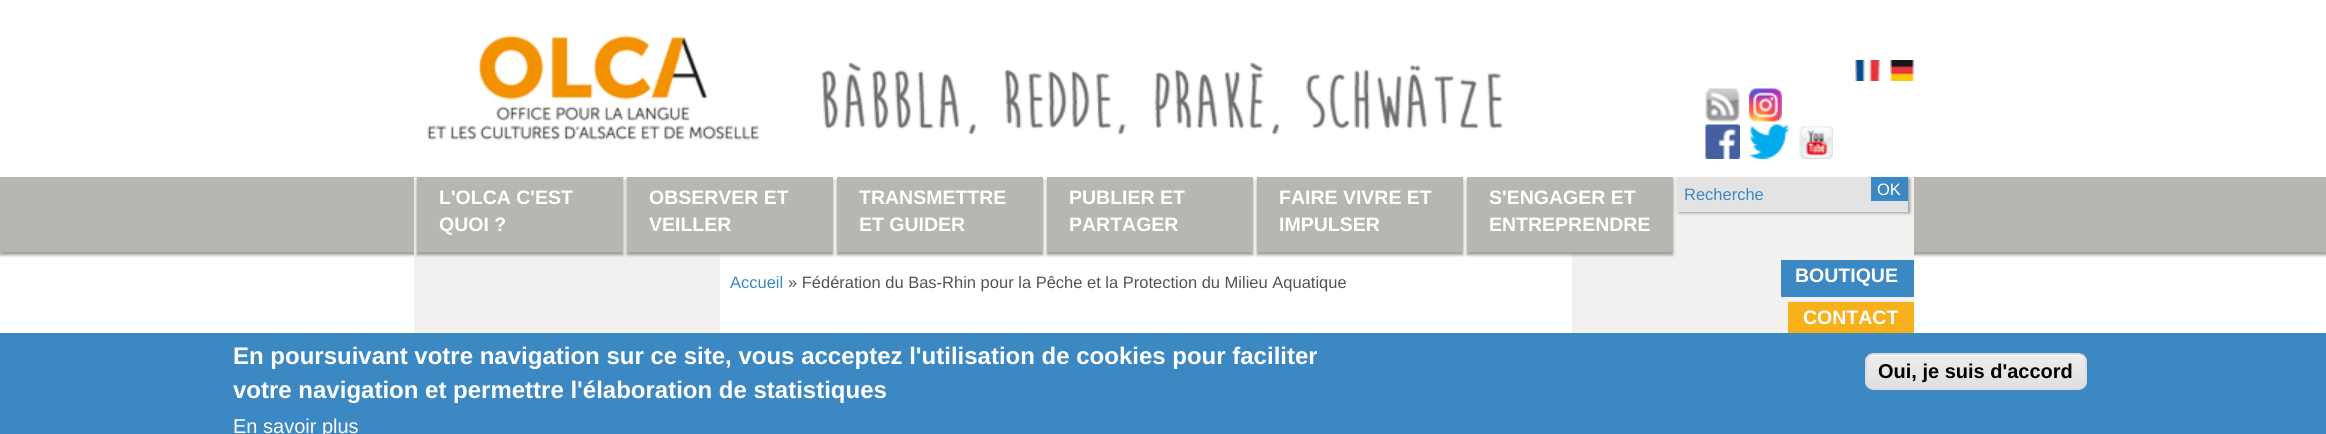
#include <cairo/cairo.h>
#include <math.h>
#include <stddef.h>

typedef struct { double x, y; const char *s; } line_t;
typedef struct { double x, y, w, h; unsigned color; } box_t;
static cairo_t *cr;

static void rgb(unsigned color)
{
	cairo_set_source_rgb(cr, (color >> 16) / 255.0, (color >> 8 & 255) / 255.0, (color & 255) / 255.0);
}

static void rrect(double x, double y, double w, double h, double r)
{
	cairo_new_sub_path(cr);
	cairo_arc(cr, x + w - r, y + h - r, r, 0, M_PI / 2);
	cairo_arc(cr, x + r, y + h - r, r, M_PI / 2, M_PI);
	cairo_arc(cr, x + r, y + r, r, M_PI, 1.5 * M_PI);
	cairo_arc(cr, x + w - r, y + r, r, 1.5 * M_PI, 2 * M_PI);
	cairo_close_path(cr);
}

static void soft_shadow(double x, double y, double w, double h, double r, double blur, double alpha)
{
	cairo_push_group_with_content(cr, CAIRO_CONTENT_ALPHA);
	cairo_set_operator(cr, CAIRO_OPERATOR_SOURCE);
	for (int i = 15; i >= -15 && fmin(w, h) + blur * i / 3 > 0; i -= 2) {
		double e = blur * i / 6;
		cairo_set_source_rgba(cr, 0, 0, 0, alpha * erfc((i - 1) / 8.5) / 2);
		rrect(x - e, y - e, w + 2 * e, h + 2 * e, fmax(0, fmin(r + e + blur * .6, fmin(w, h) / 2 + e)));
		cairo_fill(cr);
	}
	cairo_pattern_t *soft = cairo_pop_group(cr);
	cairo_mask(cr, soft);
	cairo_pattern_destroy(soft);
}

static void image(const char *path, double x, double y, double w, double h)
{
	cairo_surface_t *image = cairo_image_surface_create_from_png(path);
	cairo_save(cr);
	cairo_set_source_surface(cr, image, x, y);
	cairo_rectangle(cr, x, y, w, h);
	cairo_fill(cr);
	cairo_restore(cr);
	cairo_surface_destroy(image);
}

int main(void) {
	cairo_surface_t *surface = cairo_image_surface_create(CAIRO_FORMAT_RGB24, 2326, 434);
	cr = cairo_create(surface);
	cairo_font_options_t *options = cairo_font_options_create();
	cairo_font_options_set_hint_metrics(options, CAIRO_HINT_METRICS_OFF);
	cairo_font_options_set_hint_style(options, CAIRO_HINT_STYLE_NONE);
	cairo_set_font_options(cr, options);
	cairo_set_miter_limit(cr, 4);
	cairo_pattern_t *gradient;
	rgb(0xffffff);
	cairo_paint(cr);
	image("img/1.png", 821, 62, 683, 74);
	image("img/2.png", 427, 35, 333, 105);
	image("img/3.png", 1855, 60, 25, 21);
	image("img/4.png", 1890, 60, 24, 21);
	image("img/5.png", 1705, 88, 35, 34);
	image("img/6.png", 1749, 88, 33, 34);
	image("img/7.png", 1705, 124, 35, 35);
	image("img/8.png", 1749, 124, 41, 35);
	image("img/9.png", 1798, 126, 35, 33);
	rgb(0x999a9a);
	soft_shadow(0, 180, 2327, 75, 0, 1.5, 1);
	rgb(0xb7b6b3);
	cairo_rectangle(cr, 0, 177, 2326, 75);
	cairo_fill(cr);
	rgb(0xf2f1f0);
	cairo_rectangle(cr, 414, 177, 306, 156);
	cairo_fill(cr);
	rgb(0x999a9a);
	soft_shadow(417, 180, 206, 75, 0, 1.5, 1);
	rgb(0xb7b6b3);
	cairo_rectangle(cr, 417, 177, 206, 75);
	cairo_fill(cr);
	rgb(0xffffff);
	cairo_rectangle(cr, 720, 177, 852, 81);
	cairo_fill(cr);
	rgb(0x999a9a);
	soft_shadow(627, 180, 206, 75, 0, 1.5, 1);
	rgb(0xb7b6b3);
	cairo_rectangle(cr, 627, 177, 206, 75);
	cairo_fill(cr);
	rgb(0x999a9a);
	soft_shadow(837, 180, 206, 75, 0, 1.5, 1);
	rgb(0xb7b6b3);
	cairo_rectangle(cr, 837, 177, 206, 75);
	cairo_fill(cr);
	rgb(0x999a9a);
	soft_shadow(1047, 180, 206, 75, 0, 1.5, 1);
	rgb(0xb7b6b3);
	cairo_rectangle(cr, 1047, 177, 206, 75);
	cairo_fill(cr);
	rgb(0x999a9a);
	soft_shadow(1257, 180, 206, 75, 0, 1.5, 1);
	rgb(0xb7b6b3);
	cairo_rectangle(cr, 1257, 177, 206, 75);
	cairo_fill(cr);
	rgb(0xf2f1f0);
	cairo_rectangle(cr, 1572, 177, 342, 156);
	cairo_fill(cr);
	rgb(0x999a9a);
	soft_shadow(1679, 179, 231, 34, 0, 1.5, 1);
	rgb(0xe3e3e4);
	cairo_rectangle(cr, 1677, 177, 231, 35);
	cairo_fill(cr);
	rgb(0x999a9a);
	soft_shadow(1467, 180, 206, 75, 0, 1.5, 1);
	{
		static const box_t items[] = {
			{1467, 177, 206, 75, 0xb7b6b3},
			{1871, 177, 37, 24, 0x3c88c3},
			{1781, 260, 133, 37, 0x3c88c3},
			{1788, 302, 126, 31, 0xf8b01b},
			{0, 333, 2326, 101, 0x3c88c3},
		};
		for (size_t i = 0; i < sizeof items / sizeof *items; i++) {
			rgb(items[i].color);
			cairo_rectangle(cr, items[i].x, items[i].y, items[i].w, items[i].h);
			cairo_fill(cr);
		}
	}
	cairo_save(cr);
	rrect(1865, 353, 222, 37, 9);
	cairo_clip(cr);
	gradient = cairo_pattern_create_linear(1976, 354, 1976, 389);
	cairo_pattern_add_color_stop_rgba(gradient, 0.05, 0.929, 0.929, 0.929, 1);
	cairo_pattern_add_color_stop_rgba(gradient, 1, 0.875, 0.875, 0.875, 1);
	cairo_set_source(cr, gradient);
	cairo_pattern_destroy(gradient);
	cairo_rectangle(cr, 1865, 354, 222, 35);
	cairo_fill(cr);
	cairo_restore(cr);
	rgb(0xffffff);
	cairo_new_path(cr);
	cairo_move_to(cr, 1874, 356);
	cairo_line_to(cr, 2078, 356);
	cairo_curve_to(cr, 2082, 356, 2085, 359, 2085, 363);
	cairo_line_to(cr, 2085, 362);
	cairo_curve_to(cr, 2085, 358, 2081, 354, 2077, 354);
	cairo_line_to(cr, 1874, 354);
	cairo_curve_to(cr, 1870, 354, 1866, 358, 1866, 362);
	cairo_line_to(cr, 1866, 363);
	cairo_curve_to(cr, 1866, 359, 1869, 356, 1874, 356);
	cairo_close_path(cr);
	cairo_fill(cr);
	rrect(1866, 354, 220, 35, 8);
	rgb(0xdcdcdc);
	cairo_stroke(cr);
	cairo_select_font_face(cr, "Liberation Sans", CAIRO_FONT_SLANT_NORMAL, CAIRO_FONT_WEIGHT_BOLD);
	cairo_set_font_size(cr, 19.5);
	rgb(0xffffff);
	{
		static const line_t items[] = {
			{439, 204, "L'OLCA C'EST"},
			{439, 231, "QUOI ?"},
			{649, 204, "OBSERVER ET"},
			{649, 231, "VEILLER"},
			{859, 204, "TRANSMETTRE"},
			{859, 231, "ET GUIDER"},
			{1069, 204, "PUBLIER ET"},
			{1069, 231, "PARTAGER"},
			{1279, 204, "FAIRE VIVRE ET"},
			{1279, 231, "IMPULSER"},
			{1489, 204, "S'ENGAGER ET"},
			{1489, 231, "ENTREPRENDRE"},
		};
		for (size_t i = 0; i < sizeof items / sizeof *items; i++) {
			cairo_move_to(cr, items[i].x, items[i].y);
			cairo_show_text(cr, items[i].s);
		}
	}
	cairo_select_font_face(cr, "Liberation Sans", CAIRO_FONT_SLANT_NORMAL, CAIRO_FONT_WEIGHT_NORMAL);
	cairo_set_font_size(cr, 16.5);
	rgb(0x3c88c3);
	cairo_move_to(cr, 1684, 200);
	cairo_show_text(cr, "Recherche");
	rgb(0xffffff);
	cairo_move_to(cr, 1877, 195);
	cairo_show_text(cr, "OK");
	rgb(0x3c88c3);
	cairo_move_to(cr, 730, 288);
	cairo_show_text(cr, "Accueil");
	rgb(0x545454);
	cairo_move_to(cr, 788, 288);
	cairo_show_text(cr, "» Fédération du Bas-Rhin pour la Pêche et la Protection du Milieu Aquatique");
	cairo_select_font_face(cr, "Liberation Sans", CAIRO_FONT_SLANT_NORMAL, CAIRO_FONT_WEIGHT_BOLD);
	cairo_set_font_size(cr, 19.5);
	rgb(0xffffff);
	cairo_move_to(cr, 1795, 282);
	cairo_show_text(cr, "BOUTIQUE");
	cairo_move_to(cr, 1803, 324);
	cairo_show_text(cr, "CONTACT");
	cairo_set_font_size(cr, 24);
	cairo_move_to(cr, 233, 364);
	cairo_show_text(cr, "En poursuivant votre navigation sur ce site, vous acceptez l'utilisation de cookies pour faciliter");
	cairo_move_to(cr, 233, 398);
	cairo_show_text(cr, "votre navigation et permettre l'élaboration de statistiques");
	cairo_select_font_face(cr, "Liberation Sans", CAIRO_FONT_SLANT_NORMAL, CAIRO_FONT_WEIGHT_NORMAL);
	cairo_set_font_size(cr, 20);
	cairo_move_to(cr, 233, 433);
	cairo_show_text(cr, "En savoir plus");
	cairo_select_font_face(cr, "Liberation Sans", CAIRO_FONT_SLANT_NORMAL, CAIRO_FONT_WEIGHT_BOLD);
	rgb(0x000000);
	cairo_move_to(cr, 1878, 378);
	cairo_show_text(cr, "Oui, je suis d'accord");
	cairo_surface_write_to_png(surface, "page.png");
	cairo_font_options_destroy(options);
	cairo_destroy(cr);
	cairo_surface_destroy(surface);
	return 0;
}
